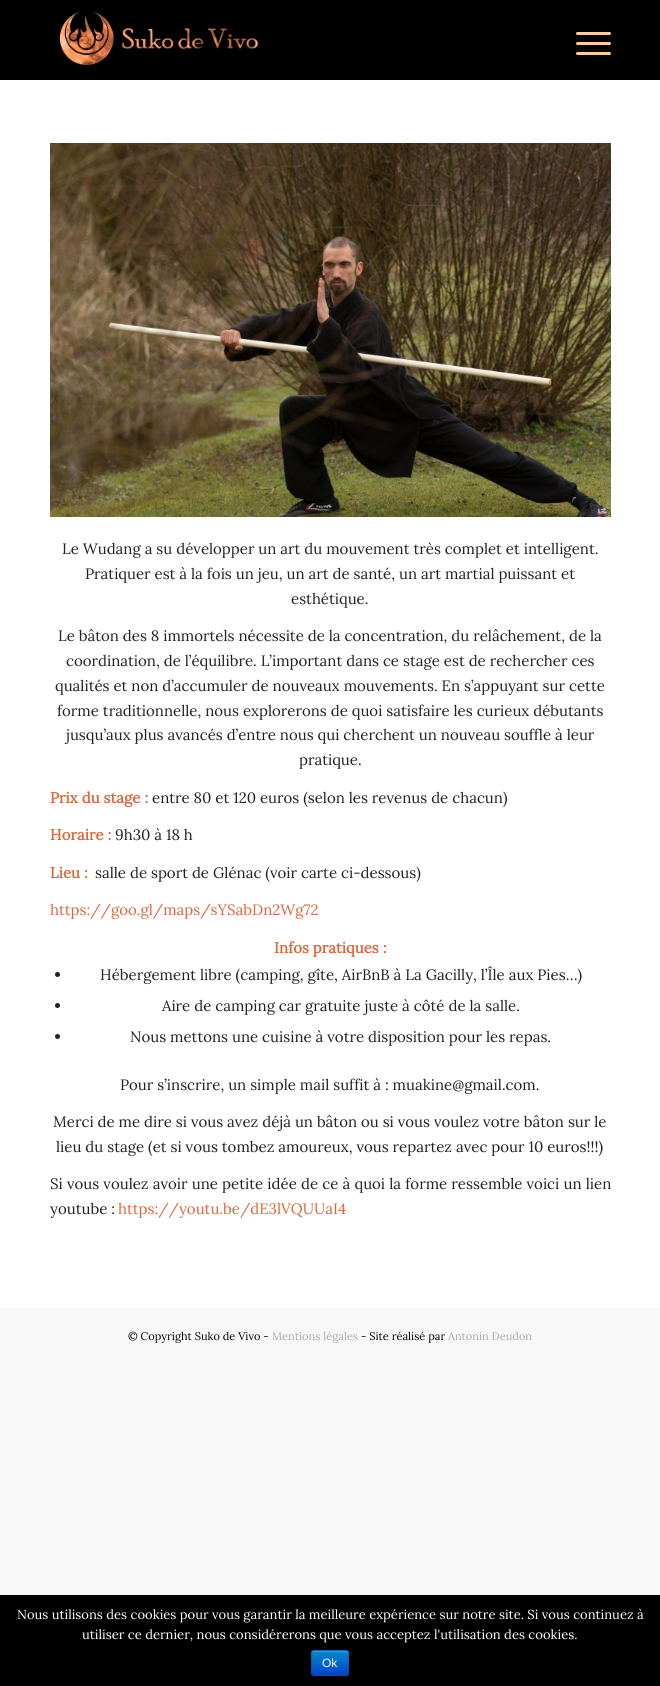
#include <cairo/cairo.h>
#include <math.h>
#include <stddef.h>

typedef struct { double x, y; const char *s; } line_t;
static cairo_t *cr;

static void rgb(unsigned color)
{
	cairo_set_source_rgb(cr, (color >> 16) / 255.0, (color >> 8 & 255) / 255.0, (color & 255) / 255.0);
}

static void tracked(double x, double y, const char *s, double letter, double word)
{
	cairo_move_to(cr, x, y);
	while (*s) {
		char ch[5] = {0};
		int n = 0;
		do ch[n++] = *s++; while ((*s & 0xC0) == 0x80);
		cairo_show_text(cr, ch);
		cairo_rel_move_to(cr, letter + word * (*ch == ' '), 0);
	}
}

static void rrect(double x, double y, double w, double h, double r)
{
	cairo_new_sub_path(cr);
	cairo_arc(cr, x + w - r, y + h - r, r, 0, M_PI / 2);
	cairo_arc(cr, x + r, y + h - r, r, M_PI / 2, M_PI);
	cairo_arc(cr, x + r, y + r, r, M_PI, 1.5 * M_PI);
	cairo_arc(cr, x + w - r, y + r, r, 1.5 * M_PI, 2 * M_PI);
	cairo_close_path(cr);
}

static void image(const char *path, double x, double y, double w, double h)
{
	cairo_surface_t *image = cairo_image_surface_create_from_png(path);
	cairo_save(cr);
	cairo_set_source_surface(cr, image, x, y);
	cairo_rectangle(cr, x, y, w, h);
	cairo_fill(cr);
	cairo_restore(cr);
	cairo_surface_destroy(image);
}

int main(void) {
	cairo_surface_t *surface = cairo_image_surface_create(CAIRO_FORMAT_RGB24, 660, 1686);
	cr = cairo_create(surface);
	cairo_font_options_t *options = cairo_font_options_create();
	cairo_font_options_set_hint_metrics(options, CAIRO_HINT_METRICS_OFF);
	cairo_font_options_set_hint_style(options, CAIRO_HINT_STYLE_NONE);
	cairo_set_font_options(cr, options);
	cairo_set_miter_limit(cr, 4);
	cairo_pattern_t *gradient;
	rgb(0xf8f8f8);
	cairo_paint(cr);
	rgb(0x000000);
	cairo_rectangle(cr, 0, 0, 660, 80);
	cairo_fill(cr);
	image("img/1.png", 59, 11, 200, 55);
	rgb(0xffcc99);
	rrect(576, 42, 35, 3, 1.5);
	cairo_fill(cr);
	rrect(576, 32, 35, 3, 1.5);
	cairo_fill(cr);
	rrect(576, 52, 35, 3, 1.5);
	cairo_fill(cr);
	rgb(0xffffff);
	cairo_rectangle(cr, 0, 80, 660, 1228);
	cairo_fill(cr);
	image("img/2.png", 50, 143, 561, 374);
	rgb(0x222222);
	cairo_arc(cr, 57.5, 974.5, 2.5, 0, 2 * M_PI);
	cairo_fill(cr);
	cairo_arc(cr, 57.5, 1005.5, 2.5, 0, 2 * M_PI);
	cairo_fill(cr);
	cairo_arc(cr, 57.5, 1036.5, 2.5, 0, 2 * M_PI);
	cairo_fill(cr);
	rgb(0x000000);
	cairo_rectangle(cr, 0, 1595, 660, 91);
	cairo_fill(cr);
	rgb(0x006dcc);
	rrect(311, 1650, 38, 26, 3);
	cairo_fill(cr);
	cairo_save(cr);
	rrect(311, 1650, 38, 26, 3);
	cairo_clip(cr);
	gradient = cairo_pattern_create_linear(330, 1651, 330, 1675);
	cairo_pattern_add_color_stop_rgba(gradient, 0, 0, 0.533, 0.8, 1);
	cairo_pattern_add_color_stop_rgba(gradient, 1, 0, 0.267, 0.8, 1);
	cairo_set_source(cr, gradient);
	cairo_pattern_destroy(gradient);
	cairo_rectangle(cr, 311, 1651, 38, 24);
	cairo_fill(cr);
	cairo_restore(cr);
	cairo_set_source_rgba(cr, 1, 1, 1, 0.2);
	cairo_new_path(cr);
	cairo_move_to(cr, 314, 1652);
	cairo_line_to(cr, 346, 1652);
	cairo_curve_to(cr, 347, 1652, 348, 1653, 348, 1654);
	cairo_curve_to(cr, 348, 1649.5, 344.5, 1651, 340.5, 1651);
	cairo_line_to(cr, 319.5, 1651);
	cairo_curve_to(cr, 315.5, 1651, 312, 1649.5, 312, 1654);
	cairo_curve_to(cr, 312, 1653, 313, 1652, 314, 1652);
	cairo_close_path(cr);
	cairo_fill(cr);
	cairo_new_path(cr);
	cairo_move_to(cr, 348, 1675);
	cairo_curve_to(cr, 347.5, 1675, 346.5, 1675.5, 346, 1675.5);
	cairo_line_to(cr, 314, 1675.5);
	cairo_curve_to(cr, 313.5, 1675.5, 312.5, 1675, 312, 1675);
	cairo_set_source_rgba(cr, 0, 0, 0, 0.25);
	cairo_set_line_width(cr, 1);
	cairo_stroke(cr);
	cairo_new_path(cr);
	cairo_move_to(cr, 312, 1675);
	cairo_curve_to(cr, 312, 1674.5, 311.5, 1673.5, 311.5, 1673);
	cairo_line_to(cr, 311.5, 1653);
	cairo_curve_to(cr, 311.5, 1652.5, 312, 1651.5, 312, 1651);
	cairo_curve_to(cr, 312.5, 1651, 313.5, 1650.5, 314, 1650.5);
	cairo_line_to(cr, 346, 1650.5);
	cairo_curve_to(cr, 346.5, 1650.5, 347.5, 1651, 348, 1651);
	cairo_curve_to(cr, 348, 1651.5, 348.5, 1652.5, 348.5, 1653);
	cairo_line_to(cr, 348.5, 1673);
	cairo_curve_to(cr, 348.5, 1673.5, 348, 1674.5, 348, 1675);
	cairo_set_source_rgba(cr, 0, 0, 0, 0.1);
	cairo_stroke(cr);
	cairo_select_font_face(cr, "Lora", CAIRO_FONT_SLANT_NORMAL, CAIRO_FONT_WEIGHT_NORMAL);
	cairo_set_font_size(cr, 15);
	rgb(0x222222);
	{
		static const line_t items[] = {
			{62, 554, "Le Wudang a su développer un art du mouvement très complet et intelligent."},
			{85, 579, "Pratiquer est à la fois un jeu, un art de santé, un art martial puissant et"},
			{291, 604, "esthétique."},
			{58, 641, "Le bâton des 8 immortels nécessite de la concentration, du relâchement, de la"},
			{66, 666, "coordination, de l’équilibre. L’important dans ce stage est de rechercher ces"},
			{55, 691, "qualités et non d’accumuler de nouveaux mouvements. En s’appuyant sur cette"},
			{57, 716, "forme traditionnelle, nous explorerons de quoi satisfaire les curieux débutants"},
			{66, 740, "jusqu’aux plus avancés d’entre nous qui cherchent un nouveau souffle à leur"},
			{299, 765, "pratique."},
		};
		for (size_t i = 0; i < sizeof items / sizeof *items; i++) {
			cairo_move_to(cr, items[i].x, items[i].y);
			cairo_show_text(cr, items[i].s);
		}
	}
	cairo_select_font_face(cr, "Lora", CAIRO_FONT_SLANT_NORMAL, CAIRO_FONT_WEIGHT_BOLD);
	rgb(0xde6739);
	cairo_move_to(cr, 50, 803);
	cairo_show_text(cr, "Prix du stage :");
	cairo_select_font_face(cr, "Lora", CAIRO_FONT_SLANT_NORMAL, CAIRO_FONT_WEIGHT_NORMAL);
	rgb(0x222222);
	cairo_move_to(cr, 152, 803);
	cairo_show_text(cr, "entre 80 et 120 euros (selon les revenus de chacun)");
	cairo_select_font_face(cr, "Lora", CAIRO_FONT_SLANT_NORMAL, CAIRO_FONT_WEIGHT_BOLD);
	rgb(0xde6739);
	cairo_move_to(cr, 50, 840);
	cairo_show_text(cr, "Horaire :");
	cairo_select_font_face(cr, "Lora", CAIRO_FONT_SLANT_NORMAL, CAIRO_FONT_WEIGHT_NORMAL);
	rgb(0x222222);
	cairo_move_to(cr, 115, 840);
	cairo_show_text(cr, "9h30 à 18 h");
	cairo_select_font_face(cr, "Lora", CAIRO_FONT_SLANT_NORMAL, CAIRO_FONT_WEIGHT_BOLD);
	rgb(0xde6739);
	cairo_move_to(cr, 50, 878);
	cairo_show_text(cr, "Lieu :");
	cairo_select_font_face(cr, "Lora", CAIRO_FONT_SLANT_NORMAL, CAIRO_FONT_WEIGHT_NORMAL);
	rgb(0x222222);
	cairo_move_to(cr, 95, 878);
	cairo_show_text(cr, "salle de sport de Glénac (voir carte ci-dessous)");
	rgb(0xde6739);
	cairo_move_to(cr, 50, 915);
	cairo_show_text(cr, "https://goo.gl/maps/sYSabDn2Wg72");
	cairo_select_font_face(cr, "Lora", CAIRO_FONT_SLANT_NORMAL, CAIRO_FONT_WEIGHT_BOLD);
	cairo_move_to(cr, 274, 953);
	cairo_show_text(cr, "Infos pratiques :");
	cairo_select_font_face(cr, "Lora", CAIRO_FONT_SLANT_NORMAL, CAIRO_FONT_WEIGHT_NORMAL);
	rgb(0x222222);
	{
		static const line_t items[] = {
			{100, 980, "Hébergement libre (camping, gîte, AirBnB à La Gacilly, l’Île aux Pies…)"},
			{162, 1011, "Aire de camping car gratuite juste à côté de la salle."},
			{130, 1042, "Nous mettons une cuisine à votre disposition pour les repas."},
			{120, 1090, "Pour s’inscrire, un simple mail suffit à : muakine@gmail.com."},
			{53, 1127, "Merci de me dire si vous avez déjà un bâton ou si vous voulez votre bâton sur le"},
			{56, 1152, "lieu du stage (et si vous tombez amoureux, vous repartez avec pour 10 euros!!!)"},
		};
		for (size_t i = 0; i < sizeof items / sizeof *items; i++) {
			cairo_move_to(cr, items[i].x, items[i].y);
			cairo_show_text(cr, items[i].s);
		}
	}
	tracked(50, 1189, "Si vous voulez avoir une petite idée de ce à quoi la forme ressemble voici un lien", 0, 0.25);
	cairo_move_to(cr, 50, 1214);
	cairo_show_text(cr, "youtube :");
	rgb(0xde6739);
	cairo_move_to(cr, 118, 1214);
	cairo_show_text(cr, "https://youtu.be/dE3lVQUUaI4");
	cairo_set_font_size(cr, 11);
	rgb(0x000000);
	cairo_move_to(cr, 128, 1340);
	cairo_show_text(cr, "© Copyright Suko de Vivo -");
	rgb(0xaaaaaa);
	cairo_move_to(cr, 272, 1340);
	cairo_show_text(cr, "Mentions légales");
	rgb(0x000000);
	cairo_move_to(cr, 361, 1340);
	cairo_show_text(cr, "- Site réalisé par");
	rgb(0xaaaaaa);
	cairo_move_to(cr, 448, 1340);
	cairo_show_text(cr, "Antonin Deudon");
	cairo_set_font_size(cr, 13);
	rgb(0xffffff);
	cairo_move_to(cr, 17, 1619);
	cairo_show_text(cr, "Nous utilisons des cookies pour vous garantir la meilleure expérience sur notre site. Si vous continuez à");
	cairo_move_to(cr, 82, 1639);
	cairo_show_text(cr, "utiliser ce dernier, nous considérerons que vous acceptez l'utilisation des cookies.");
	cairo_select_font_face(cr, "Liberation Sans", CAIRO_FONT_SLANT_NORMAL, CAIRO_FONT_WEIGHT_NORMAL);
	cairo_set_font_size(cr, 12);
	cairo_move_to(cr, 322, 1667);
	cairo_show_text(cr, "Ok");
	cairo_surface_write_to_png(surface, "page.png");
	cairo_font_options_destroy(options);
	cairo_destroy(cr);
	cairo_surface_destroy(surface);
	return 0;
}
